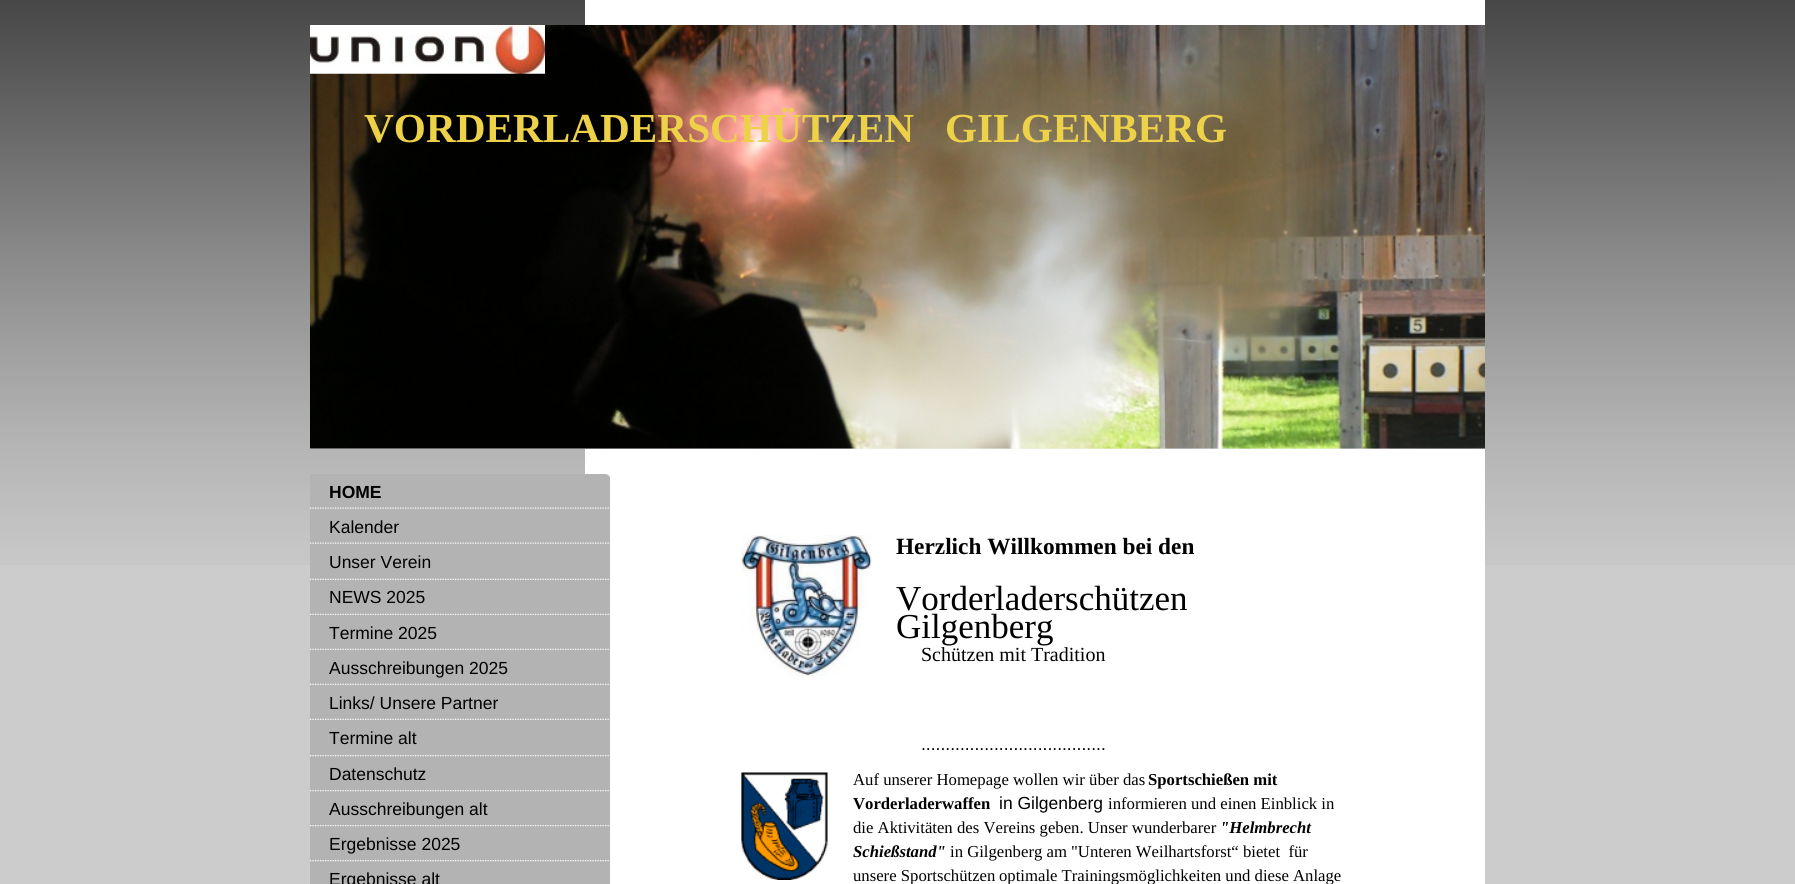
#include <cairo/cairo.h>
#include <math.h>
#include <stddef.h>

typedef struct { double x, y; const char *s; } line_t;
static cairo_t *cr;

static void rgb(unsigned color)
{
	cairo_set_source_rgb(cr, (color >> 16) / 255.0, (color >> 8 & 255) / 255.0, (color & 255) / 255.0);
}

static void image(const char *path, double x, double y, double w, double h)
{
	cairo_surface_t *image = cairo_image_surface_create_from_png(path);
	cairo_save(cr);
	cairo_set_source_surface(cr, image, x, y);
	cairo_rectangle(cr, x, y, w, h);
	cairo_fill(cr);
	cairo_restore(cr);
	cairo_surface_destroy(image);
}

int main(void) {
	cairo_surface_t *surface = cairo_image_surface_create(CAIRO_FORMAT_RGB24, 1795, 884);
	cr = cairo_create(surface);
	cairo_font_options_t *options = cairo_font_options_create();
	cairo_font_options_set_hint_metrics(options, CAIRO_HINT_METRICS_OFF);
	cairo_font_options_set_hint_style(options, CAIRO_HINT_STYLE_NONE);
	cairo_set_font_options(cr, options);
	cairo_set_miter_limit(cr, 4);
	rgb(0xcccccc);
	cairo_paint(cr);
	image("img/1.png", 0, 0, 1795, 565);
	rgb(0xffffff);
	cairo_rectangle(cr, 585, 0, 900, 884);
	cairo_fill(cr);
	rgb(0xeeeeee);
	cairo_rectangle(cr, 310, 448, 1175, 1);
	cairo_fill(cr);
	image("img/2.png", 310, 25, 1175, 424);
	image("img/3.png", 310, 25, 235, 49);
	rgb(0xb3b3b3);
	cairo_rectangle(cr, 310, 474, 300, 410);
	cairo_fill(cr);
	image("img/4.png", 605, 474, 5, 4);
	image("img/5.png", 310, 507, 300, 2);
	image("img/5.png", 310, 542, 300, 2);
	image("img/6.png", 310, 578, 300, 2);
	image("img/6.png", 310, 613, 300, 2);
	image("img/6.png", 310, 648, 300, 2);
	image("img/6.png", 310, 683, 300, 2);
	image("img/6.png", 310, 718, 300, 2);
	image("img/7.png", 310, 755, 300, 2);
	image("img/7.png", 310, 790, 300, 2);
	image("img/7.png", 310, 825, 300, 2);
	image("img/7.png", 310, 860, 300, 2);
	image("img/8.png", 741, 535, 131, 141);
	image("img/9.png", 741, 772, 87, 108);
	cairo_select_font_face(cr, "Liberation Serif", CAIRO_FONT_SLANT_NORMAL, CAIRO_FONT_WEIGHT_BOLD);
	cairo_set_font_size(cr, 41.25);
	rgb(0xedd148);
	cairo_move_to(cr, 364, 142);
	cairo_show_text(cr, "VORDERLADERSCHÜTZEN   GILGENBERG");
	cairo_select_font_face(cr, "Liberation Sans", CAIRO_FONT_SLANT_NORMAL, CAIRO_FONT_WEIGHT_BOLD);
	cairo_set_font_size(cr, 17.5);
	rgb(0x000000);
	cairo_move_to(cr, 329, 498);
	cairo_show_text(cr, "HOME");
	cairo_select_font_face(cr, "Liberation Sans", CAIRO_FONT_SLANT_NORMAL, CAIRO_FONT_WEIGHT_NORMAL);
	{
		static const line_t items[] = {
			{329, 533, "Kalender"},
			{329, 568, "Unser Verein"},
			{329, 603, "NEWS 2025"},
			{329, 639, "Termine 2025"},
			{329, 674, "Ausschreibungen 2025"},
			{329, 709, "Links/ Unsere Partner"},
			{329, 744, "Termine alt"},
			{329, 780, "Datenschutz"},
			{329, 815, "Ausschreibungen alt"},
			{329, 850, "Ergebnisse 2025"},
			{329, 885, "Ergebnisse alt"},
		};
		for (size_t i = 0; i < sizeof items / sizeof *items; i++) {
			cairo_move_to(cr, items[i].x, items[i].y);
			cairo_show_text(cr, items[i].s);
		}
	}
	cairo_select_font_face(cr, "Liberation Serif", CAIRO_FONT_SLANT_NORMAL, CAIRO_FONT_WEIGHT_BOLD);
	cairo_set_font_size(cr, 23.3);
	cairo_move_to(cr, 896, 554);
	cairo_show_text(cr, "Herzlich Willkommen bei den");
	cairo_select_font_face(cr, "Liberation Serif", CAIRO_FONT_SLANT_NORMAL, CAIRO_FONT_WEIGHT_NORMAL);
	cairo_set_font_size(cr, 35);
	cairo_move_to(cr, 896, 610);
	cairo_show_text(cr, "Vorderladerschützen");
	cairo_move_to(cr, 896, 638);
	cairo_show_text(cr, "Gilgenberg");
	cairo_set_font_size(cr, 20);
	cairo_move_to(cr, 921, 661);
	cairo_show_text(cr, "Schützen mit Tradition");
	cairo_select_font_face(cr, "Liberation Sans", CAIRO_FONT_SLANT_NORMAL, CAIRO_FONT_WEIGHT_NORMAL);
	cairo_set_font_size(cr, 17.5);
	cairo_move_to(cr, 921, 750);
	cairo_show_text(cr, "......................................");
	cairo_select_font_face(cr, "Liberation Serif", CAIRO_FONT_SLANT_NORMAL, CAIRO_FONT_WEIGHT_NORMAL);
	cairo_set_font_size(cr, 16.7);
	cairo_move_to(cr, 853, 785);
	cairo_show_text(cr, "Auf unserer Homepage wollen wir über das");
	cairo_select_font_face(cr, "Liberation Serif", CAIRO_FONT_SLANT_NORMAL, CAIRO_FONT_WEIGHT_BOLD);
	cairo_move_to(cr, 1148, 785);
	cairo_show_text(cr, "Sportschießen mit");
	cairo_move_to(cr, 853, 809);
	cairo_show_text(cr, "Vorderladerwaffen");
	cairo_select_font_face(cr, "Liberation Sans", CAIRO_FONT_SLANT_NORMAL, CAIRO_FONT_WEIGHT_NORMAL);
	cairo_set_font_size(cr, 17.5);
	cairo_move_to(cr, 999, 809);
	cairo_show_text(cr, "in Gilgenberg");
	cairo_select_font_face(cr, "Liberation Serif", CAIRO_FONT_SLANT_NORMAL, CAIRO_FONT_WEIGHT_NORMAL);
	cairo_set_font_size(cr, 16.7);
	{
		static const line_t items[] = {
			{1108, 809, "informieren und einen Einblick in"},
			{853, 833, "die Aktivitäten"},
			{957, 833, "des Vereins geben. Unser wunderbarer"},
		};
		for (size_t i = 0; i < sizeof items / sizeof *items; i++) {
			cairo_move_to(cr, items[i].x, items[i].y);
			cairo_show_text(cr, items[i].s);
		}
	}
	cairo_select_font_face(cr, "Liberation Serif", CAIRO_FONT_SLANT_ITALIC, CAIRO_FONT_WEIGHT_BOLD);
	cairo_move_to(cr, 1220, 833);
	cairo_show_text(cr, "\"Helmbrecht");
	cairo_move_to(cr, 853, 857);
	cairo_show_text(cr, "Schießstand\"");
	cairo_select_font_face(cr, "Liberation Serif", CAIRO_FONT_SLANT_NORMAL, CAIRO_FONT_WEIGHT_NORMAL);
	{
		static const line_t items[] = {
			{950, 857, "in Gilgenberg am \"Unteren Weilhartsforst“ bietet  für"},
			{853, 881, "unsere Sportschützen"},
			{999, 881, "optimale Trainingsmöglichkeiten und diese Anlage"},
		};
		for (size_t i = 0; i < sizeof items / sizeof *items; i++) {
			cairo_move_to(cr, items[i].x, items[i].y);
			cairo_show_text(cr, items[i].s);
		}
	}
	cairo_surface_write_to_png(surface, "page.png");
	cairo_font_options_destroy(options);
	cairo_destroy(cr);
	cairo_surface_destroy(surface);
	return 0;
}
